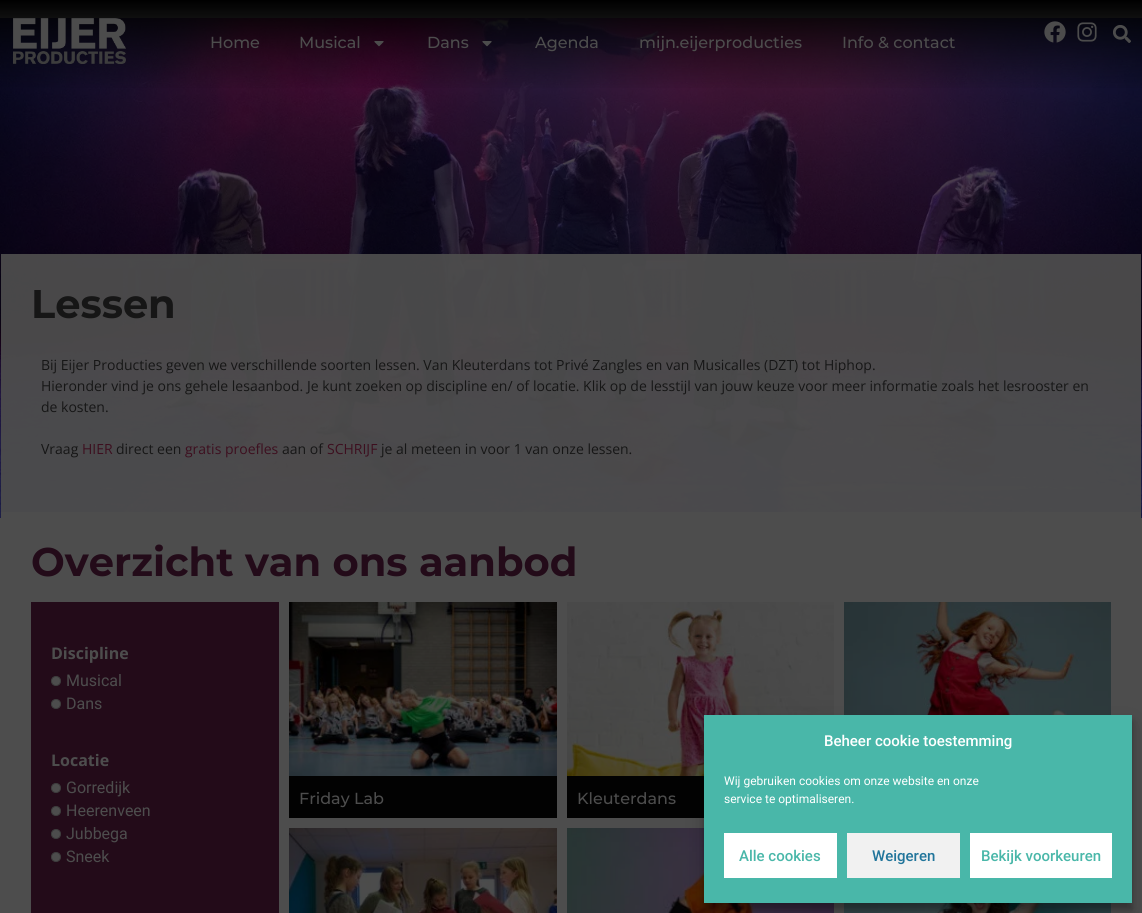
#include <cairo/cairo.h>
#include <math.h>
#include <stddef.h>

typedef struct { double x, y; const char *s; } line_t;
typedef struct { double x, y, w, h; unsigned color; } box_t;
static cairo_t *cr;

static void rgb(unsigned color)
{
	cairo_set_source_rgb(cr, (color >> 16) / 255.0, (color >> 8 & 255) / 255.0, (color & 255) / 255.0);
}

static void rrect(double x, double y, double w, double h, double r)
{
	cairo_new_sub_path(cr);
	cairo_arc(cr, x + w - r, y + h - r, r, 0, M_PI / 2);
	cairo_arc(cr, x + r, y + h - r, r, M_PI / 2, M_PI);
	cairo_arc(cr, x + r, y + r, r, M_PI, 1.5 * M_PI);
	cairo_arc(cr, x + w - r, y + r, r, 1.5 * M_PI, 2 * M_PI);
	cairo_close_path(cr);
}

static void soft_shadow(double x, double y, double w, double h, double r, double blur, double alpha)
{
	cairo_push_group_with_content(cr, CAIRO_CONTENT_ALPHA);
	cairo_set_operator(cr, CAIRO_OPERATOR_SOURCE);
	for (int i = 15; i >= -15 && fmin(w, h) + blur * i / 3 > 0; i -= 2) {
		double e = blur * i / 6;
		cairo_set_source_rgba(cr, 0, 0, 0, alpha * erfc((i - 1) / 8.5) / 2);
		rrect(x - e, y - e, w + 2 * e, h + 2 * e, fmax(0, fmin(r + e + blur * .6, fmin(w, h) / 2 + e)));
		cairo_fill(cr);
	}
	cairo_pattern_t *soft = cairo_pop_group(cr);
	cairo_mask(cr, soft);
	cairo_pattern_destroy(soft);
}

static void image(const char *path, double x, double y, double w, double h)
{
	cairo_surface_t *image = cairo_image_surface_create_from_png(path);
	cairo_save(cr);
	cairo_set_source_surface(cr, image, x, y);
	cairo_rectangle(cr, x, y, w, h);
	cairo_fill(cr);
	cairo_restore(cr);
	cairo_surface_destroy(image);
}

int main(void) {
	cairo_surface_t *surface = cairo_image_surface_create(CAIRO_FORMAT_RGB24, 1142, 913);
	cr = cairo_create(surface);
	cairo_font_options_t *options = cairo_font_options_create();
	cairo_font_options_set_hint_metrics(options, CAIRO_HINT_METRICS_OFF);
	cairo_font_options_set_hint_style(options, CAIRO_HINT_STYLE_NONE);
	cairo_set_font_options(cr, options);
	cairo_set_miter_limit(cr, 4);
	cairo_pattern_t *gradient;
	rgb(0x4d4d4d);
	cairo_paint(cr);
	image("img/7.png", 0, 18, 1142, 500);
	gradient = cairo_pattern_create_linear(571, 0, 571, 100);
	cairo_pattern_add_color_stop_rgba(gradient, 0, 0, 0, 0, 1);
	cairo_pattern_add_color_stop_rgba(gradient, 0.91, 0, 0, 0, 0);
	cairo_set_source(cr, gradient);
	cairo_pattern_destroy(gradient);
	cairo_rectangle(cr, 0, 0, 1142, 88);
	cairo_fill(cr);
	image("img/1.png", 13, 18, 113, 46);
	image("img/2.png", 374, 41, 10, 6);
	image("img/3.png", 482, 41, 10, 6);
	image("img/4.png", 1044, 21, 22, 22);
	image("img/5.png", 1077, 22, 20, 20);
	image("img/6.png", 1113, 25, 18, 18);
	cairo_set_source_rgba(cr, 0.302, 0.302, 0.302, 0.94);
	cairo_rectangle(cr, 1, 254, 1140, 258);
	cairo_fill(cr);
	rgb(0x4d4d4d);
	cairo_rectangle(cr, 1, 512, 1140, 6);
	cairo_fill(cr);
	rgb(0x230b19);
	cairo_rectangle(cr, 31, 602, 248, 311);
	cairo_fill(cr);
	rgb(0x4d4d4d);
	cairo_arc(cr, 56, 681, 4.5, 0, 2 * M_PI);
	cairo_fill_preserve(cr);
	rgb(0x3d3d3d);
	cairo_set_line_width(cr, 1);
	cairo_stroke(cr);
	rgb(0x4d4d4d);
	cairo_arc(cr, 56, 704, 4.5, 0, 2 * M_PI);
	cairo_fill_preserve(cr);
	rgb(0x3d3d3d);
	cairo_stroke(cr);
	rgb(0x4d4d4d);
	cairo_arc(cr, 56, 788, 4.5, 0, 2 * M_PI);
	cairo_fill_preserve(cr);
	rgb(0x3d3d3d);
	cairo_stroke(cr);
	rgb(0x4d4d4d);
	cairo_arc(cr, 56, 811, 4.5, 0, 2 * M_PI);
	cairo_fill_preserve(cr);
	rgb(0x3d3d3d);
	cairo_stroke(cr);
	rgb(0x4d4d4d);
	cairo_arc(cr, 56, 834, 4.5, 0, 2 * M_PI);
	cairo_fill_preserve(cr);
	rgb(0x3d3d3d);
	cairo_stroke(cr);
	rgb(0x4d4d4d);
	cairo_arc(cr, 56, 857, 4.5, 0, 2 * M_PI);
	cairo_fill_preserve(cr);
	rgb(0x3d3d3d);
	cairo_stroke(cr);
	image("img/8.png", 844, 602, 267, 113);
	rgb(0x020202);
	cairo_rectangle(cr, 289, 776, 268, 42);
	cairo_fill(cr);
	image("img/9.png", 289, 602, 268, 174);
	cairo_rectangle(cr, 567, 776, 137, 42);
	cairo_fill(cr);
	image("img/10.png", 567, 602, 267, 174);
	image("img/11.png", 289, 828, 268, 85);
	image("img/12.png", 567, 828, 267, 85);
	image("img/13.png", 844, 903, 267, 10);
	rgb(0x000000);
	soft_shadow(704, 721, 428, 188, 0, 3, 0.23);
	soft_shadow(704, 725, 428, 188, 0, 10, 0.19);
	{
		static const box_t items[] = {
			{704, 715, 428, 188, 0x49b7a9},
			{724, 833, 113, 45, 0xffffff},
			{847, 833, 113, 45, 0xf1f1f1},
			{970, 833, 142, 45, 0xffffff},
		};
		for (size_t i = 0; i < sizeof items / sizeof *items; i++) {
			rgb(items[i].color);
			cairo_rectangle(cr, items[i].x, items[i].y, items[i].w, items[i].h);
			cairo_fill(cr);
		}
	}
	cairo_select_font_face(cr, "Montserrat Medium", CAIRO_FONT_SLANT_NORMAL, CAIRO_FONT_WEIGHT_NORMAL);
	cairo_set_font_size(cr, 16);
	rgb(0x4d4d4d);
	{
		static const line_t items[] = {
			{210, 48, "Home"},
			{299, 48, "Musical"},
			{427, 48, "Dans"},
			{535, 48, "Agenda"},
			{639, 48, "mijn.eijerproducties"},
			{842, 48, "Info & contact"},
		};
		for (size_t i = 0; i < sizeof items / sizeof *items; i++) {
			cairo_move_to(cr, items[i].x, items[i].y);
			cairo_show_text(cr, items[i].s);
		}
	}
	cairo_select_font_face(cr, "Montserrat", CAIRO_FONT_SLANT_NORMAL, CAIRO_FONT_WEIGHT_BOLD);
	cairo_set_font_size(cr, 40);
	rgb(0x161616);
	cairo_move_to(cr, 31, 318);
	cairo_show_text(cr, "Lessen");
	cairo_select_font_face(cr, "Open Sans", CAIRO_FONT_SLANT_NORMAL, CAIRO_FONT_WEIGHT_NORMAL);
	cairo_set_font_size(cr, 14);
	{
		static const line_t items[] = {
			{41, 370, "Bij Eijer Producties geven we verschillende soorten lessen. Van Kleuterdans tot Privé Zangles en van Musicalles (DZT) tot Hiphop."},
			{41, 391, "Hieronder vind je ons gehele lesaanbod. Je kunt zoeken op discipline en/ of locatie. Klik op de lesstijl van jouw keuze voor meer informatie zoals het lesrooster en"},
			{41, 412, "de kosten."},
			{41, 454, "Vraag"},
		};
		for (size_t i = 0; i < sizeof items / sizeof *items; i++) {
			cairo_move_to(cr, items[i].x, items[i].y);
			cairo_show_text(cr, items[i].s);
		}
	}
	rgb(0x3d0f1f);
	cairo_move_to(cr, 82, 454);
	cairo_show_text(cr, "HIER");
	rgb(0x161616);
	cairo_move_to(cr, 116, 454);
	cairo_show_text(cr, "direct een");
	rgb(0x3d0f1f);
	cairo_move_to(cr, 185, 454);
	cairo_show_text(cr, "gratis proefles");
	rgb(0x161616);
	cairo_move_to(cr, 282, 454);
	cairo_show_text(cr, "aan of");
	rgb(0x3d0f1f);
	cairo_move_to(cr, 327, 454);
	cairo_show_text(cr, "SCHRIJF");
	rgb(0x161616);
	cairo_move_to(cr, 381, 454);
	cairo_show_text(cr, "je al meteen in voor 1 van onze lessen.");
	cairo_select_font_face(cr, "Montserrat", CAIRO_FONT_SLANT_NORMAL, CAIRO_FONT_WEIGHT_BOLD);
	cairo_set_font_size(cr, 40);
	rgb(0x230b19);
	cairo_move_to(cr, 31, 576);
	cairo_show_text(cr, "Overzicht van ons aanbod");
	cairo_select_font_face(cr, "Open Sans", CAIRO_FONT_SLANT_NORMAL, CAIRO_FONT_WEIGHT_BOLD);
	cairo_set_font_size(cr, 16);
	rgb(0x4d4d4d);
	cairo_move_to(cr, 51, 659);
	cairo_show_text(cr, "Discipline");
	cairo_select_font_face(cr, "Roboto", CAIRO_FONT_SLANT_NORMAL, CAIRO_FONT_WEIGHT_NORMAL);
	cairo_move_to(cr, 66, 686);
	cairo_show_text(cr, "Musical");
	cairo_move_to(cr, 66, 709);
	cairo_show_text(cr, "Dans");
	cairo_select_font_face(cr, "Open Sans", CAIRO_FONT_SLANT_NORMAL, CAIRO_FONT_WEIGHT_BOLD);
	cairo_move_to(cr, 51, 766);
	cairo_show_text(cr, "Locatie");
	cairo_select_font_face(cr, "Roboto", CAIRO_FONT_SLANT_NORMAL, CAIRO_FONT_WEIGHT_NORMAL);
	{
		static const line_t items[] = {
			{66, 793, "Gorredijk"},
			{66, 816, "Heerenveen"},
			{66, 839, "Jubbega"},
			{66, 862, "Sneek"},
		};
		for (size_t i = 0; i < sizeof items / sizeof *items; i++) {
			cairo_move_to(cr, items[i].x, items[i].y);
			cairo_show_text(cr, items[i].s);
		}
	}
	cairo_select_font_face(cr, "Montserrat Medium", CAIRO_FONT_SLANT_NORMAL, CAIRO_FONT_WEIGHT_NORMAL);
	cairo_move_to(cr, 299, 804);
	cairo_show_text(cr, "Friday Lab");
	cairo_move_to(cr, 577, 804);
	cairo_show_text(cr, "Kleuterdans");
	cairo_select_font_face(cr, "Roboto Medium", CAIRO_FONT_SLANT_NORMAL, CAIRO_FONT_WEIGHT_NORMAL);
	cairo_set_font_size(cr, 15);
	rgb(0xffffff);
	cairo_move_to(cr, 824, 746);
	cairo_show_text(cr, "Beheer cookie toestemming");
	cairo_select_font_face(cr, "Roboto", CAIRO_FONT_SLANT_NORMAL, CAIRO_FONT_WEIGHT_NORMAL);
	cairo_set_font_size(cr, 12);
	cairo_move_to(cr, 724, 785);
	cairo_show_text(cr, "Wij gebruiken cookies om onze website en onze");
	cairo_move_to(cr, 724, 803);
	cairo_show_text(cr, "service te optimaliseren.");
	cairo_select_font_face(cr, "Roboto Medium", CAIRO_FONT_SLANT_NORMAL, CAIRO_FONT_WEIGHT_NORMAL);
	cairo_set_font_size(cr, 15);
	rgb(0x49b7a9);
	cairo_move_to(cr, 739, 861);
	cairo_show_text(cr, "Alle cookies");
	rgb(0x21759b);
	cairo_move_to(cr, 872, 861);
	cairo_show_text(cr, "Weigeren");
	rgb(0x49b7a9);
	cairo_move_to(cr, 981, 861);
	cairo_show_text(cr, "Bekijk voorkeuren");
	cairo_surface_write_to_png(surface, "page.png");
	cairo_font_options_destroy(options);
	cairo_destroy(cr);
	cairo_surface_destroy(surface);
	return 0;
}
